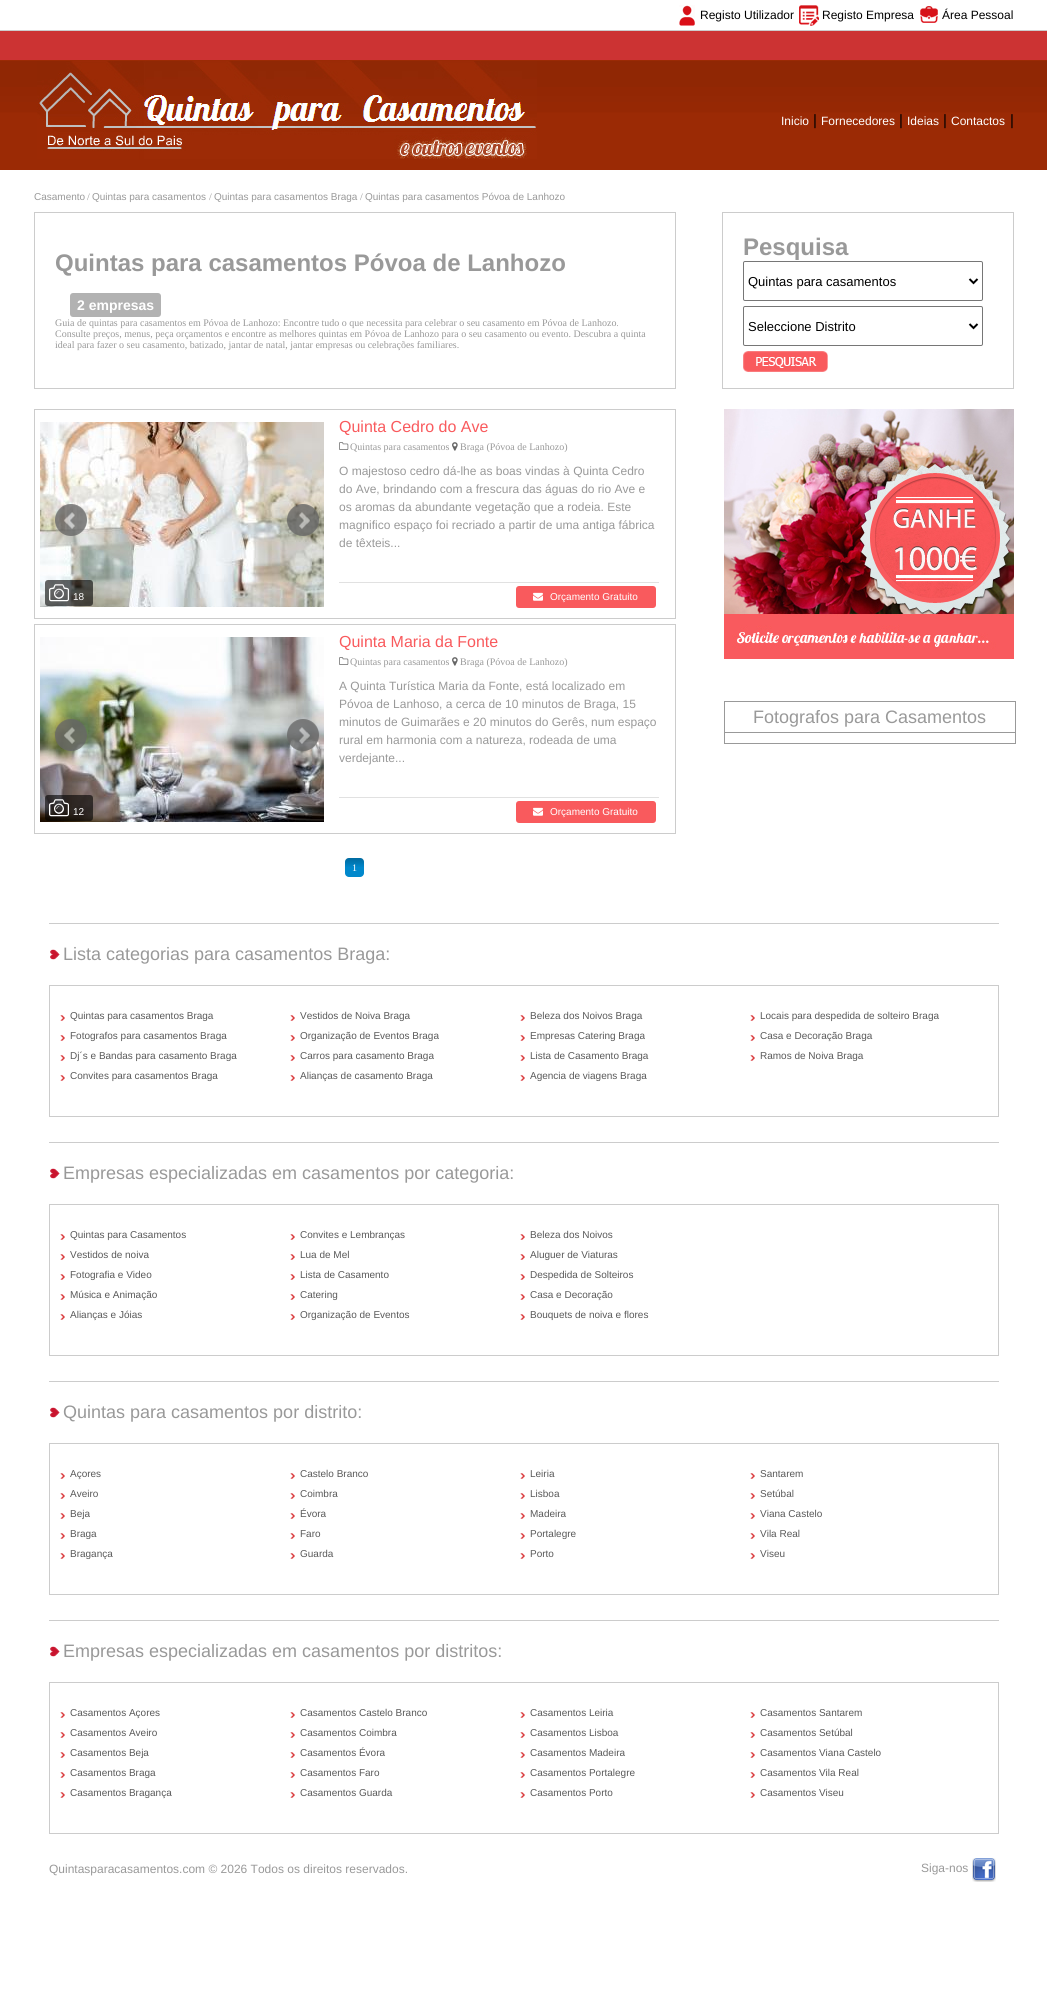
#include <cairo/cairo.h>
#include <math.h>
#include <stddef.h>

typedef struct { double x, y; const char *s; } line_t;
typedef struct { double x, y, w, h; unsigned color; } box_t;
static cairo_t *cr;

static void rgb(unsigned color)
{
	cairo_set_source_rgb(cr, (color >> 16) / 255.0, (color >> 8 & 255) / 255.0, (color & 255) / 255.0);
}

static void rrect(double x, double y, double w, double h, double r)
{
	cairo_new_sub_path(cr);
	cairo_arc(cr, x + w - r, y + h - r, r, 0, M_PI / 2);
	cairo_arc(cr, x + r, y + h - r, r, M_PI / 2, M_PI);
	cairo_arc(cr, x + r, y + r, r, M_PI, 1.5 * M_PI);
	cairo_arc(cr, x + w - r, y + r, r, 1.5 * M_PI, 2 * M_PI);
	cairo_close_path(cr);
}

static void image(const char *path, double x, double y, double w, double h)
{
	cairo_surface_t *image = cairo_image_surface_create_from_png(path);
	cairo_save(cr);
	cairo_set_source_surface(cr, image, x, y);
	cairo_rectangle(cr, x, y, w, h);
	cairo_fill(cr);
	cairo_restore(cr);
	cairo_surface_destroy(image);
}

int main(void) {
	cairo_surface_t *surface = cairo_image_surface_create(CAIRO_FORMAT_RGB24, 1047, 1991);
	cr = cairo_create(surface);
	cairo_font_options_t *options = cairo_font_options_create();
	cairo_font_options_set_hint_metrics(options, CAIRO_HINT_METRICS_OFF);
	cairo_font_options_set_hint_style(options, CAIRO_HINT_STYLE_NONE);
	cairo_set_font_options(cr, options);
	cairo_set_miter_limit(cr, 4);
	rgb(0xffffff);
	cairo_paint(cr);
	rgb(0xcccccc);
	cairo_rectangle(cr, 0, 30, 1047, 1);
	cairo_fill(cr);
	image("img/1.png", 679, 5, 16, 21);
	image("img/2.png", 799, 5, 20, 21);
	image("img/3.png", 920, 6, 18, 17);
	image("img/4.png", 0, 31, 1047, 139);
	image("img/5.png", 37, 61, 500, 98);
	cairo_rectangle(cr, 34.5, 212.5, 641, 176);
	cairo_set_line_width(cr, 1);
	cairo_stroke(cr);
	rgb(0xb2b2b2);
	rrect(70, 293, 91, 24, 3);
	cairo_fill(cr);
	cairo_rectangle(cr, 722.5, 212.5, 291, 176);
	rgb(0xcccccc);
	cairo_stroke(cr);
	rrect(743.5, 261.5, 239, 39, 1.5);
	rgb(0x767676);
	cairo_stroke(cr);
	cairo_new_path(cr);
	cairo_move_to(cr, 969.5, 279);
	cairo_line_to(cr, 973.5, 283);
	cairo_line_to(cr, 977.5, 279);
	rgb(0x000000);
	cairo_set_line_width(cr, 2);
	cairo_stroke(cr);
	rrect(743.5, 306.5, 239, 39, 1.5);
	rgb(0x767676);
	cairo_set_line_width(cr, 1);
	cairo_stroke(cr);
	cairo_new_path(cr);
	cairo_move_to(cr, 969.5, 324);
	cairo_line_to(cr, 973.5, 328);
	cairo_line_to(cr, 977.5, 324);
	rgb(0x000000);
	cairo_set_line_width(cr, 2);
	cairo_stroke(cr);
	image("img/6.png", 743, 351, 85, 21);
	cairo_rectangle(cr, 34.5, 409.5, 641, 209);
	rgb(0xcccccc);
	cairo_set_line_width(cr, 1);
	cairo_stroke(cr);
	image("img/7.png", 40, 422, 284, 185);
	image("img/8.png", 55, 504, 32, 32);
	image("img/9.png", 287, 504, 32, 32);
	image("img/10.png", 339, 442, 10, 8);
	image("img/11.png", 452, 442, 6, 9);
	rgb(0xe1e1e1);
	cairo_rectangle(cr, 339, 582, 320, 1);
	cairo_fill(cr);
	rgb(0xf95a5d);
	rrect(516, 586, 140, 22, 3);
	cairo_fill(cr);
	image("img/12.png", 533, 592, 10, 9);
	cairo_set_source_rgba(cr, 0, 0, 0, 0.6);
	rrect(45, 580, 48, 26, 3);
	cairo_fill(cr);
	image("img/13.png", 49, 584, 20, 18);
	cairo_rectangle(cr, 34.5, 624.5, 641, 209);
	rgb(0xcccccc);
	cairo_stroke(cr);
	image("img/14.png", 40, 637, 284, 185);
	image("img/15.png", 55, 719, 32, 32);
	image("img/16.png", 287, 719, 32, 32);
	image("img/10.png", 339, 657, 10, 8);
	image("img/11.png", 452, 657, 6, 9);
	rgb(0xe1e1e1);
	cairo_rectangle(cr, 339, 797, 320, 1);
	cairo_fill(cr);
	rgb(0xf95a5d);
	rrect(516, 801, 140, 22, 3);
	cairo_fill(cr);
	image("img/12.png", 533, 807, 10, 9);
	cairo_set_source_rgba(cr, 0, 0, 0, 0.6);
	rrect(45, 795, 48, 26, 3);
	cairo_fill(cr);
	image("img/17.png", 49, 799, 20, 18);
	image("img/18.png", 724, 409, 290, 250);
	cairo_rectangle(cr, 724.5, 701.5, 291, 31);
	rgb(0x999999);
	cairo_stroke(cr);
	{
		static const box_t items[] = {
			{1015, 733, 1, 11, 0x999999},
			{724, 743, 292, 1, 0x999999},
			{724, 733, 1, 11, 0x999999},
		};
		for (size_t i = 0; i < sizeof items / sizeof *items; i++) {
			rgb(items[i].color);
			cairo_rectangle(cr, items[i].x, items[i].y, items[i].w, items[i].h);
			cairo_fill(cr);
		}
	}
	rgb(0x0088cc);
	rrect(345, 858, 19, 19, 4);
	cairo_fill(cr);
	image("img/19.png", 345, 858, 19, 9);
	rgb(0xcccccc);
	cairo_rectangle(cr, 49, 923, 950, 1);
	cairo_fill(cr);
	image("img/20.png", 50, 949, 10, 11);
	cairo_rectangle(cr, 49.5, 985.5, 949, 131);
	cairo_stroke(cr);
	image("img/21.png", 60, 1015, 5, 6);
	image("img/21.png", 60, 1035, 5, 6);
	image("img/21.png", 60, 1055, 5, 6);
	image("img/21.png", 60, 1075, 5, 6);
	image("img/21.png", 290, 1015, 5, 6);
	image("img/21.png", 290, 1035, 5, 6);
	image("img/21.png", 290, 1055, 5, 6);
	image("img/21.png", 290, 1075, 5, 6);
	image("img/21.png", 520, 1015, 5, 6);
	image("img/21.png", 520, 1035, 5, 6);
	image("img/21.png", 520, 1055, 5, 6);
	image("img/21.png", 520, 1075, 5, 6);
	image("img/21.png", 750, 1015, 5, 6);
	image("img/21.png", 750, 1035, 5, 6);
	image("img/21.png", 750, 1055, 5, 6);
	cairo_rectangle(cr, 49, 1142, 950, 1);
	cairo_fill(cr);
	image("img/20.png", 50, 1168, 10, 11);
	cairo_rectangle(cr, 49.5, 1204.5, 949, 151);
	cairo_stroke(cr);
	image("img/21.png", 60, 1234, 5, 6);
	image("img/21.png", 60, 1254, 5, 6);
	image("img/21.png", 60, 1274, 5, 6);
	image("img/21.png", 60, 1294, 5, 6);
	image("img/21.png", 60, 1314, 5, 6);
	image("img/21.png", 290, 1234, 5, 6);
	image("img/21.png", 290, 1254, 5, 6);
	image("img/21.png", 290, 1274, 5, 6);
	image("img/21.png", 290, 1294, 5, 6);
	image("img/21.png", 290, 1314, 5, 6);
	image("img/21.png", 520, 1234, 5, 6);
	image("img/21.png", 520, 1254, 5, 6);
	image("img/21.png", 520, 1274, 5, 6);
	image("img/21.png", 520, 1294, 5, 6);
	image("img/21.png", 520, 1314, 5, 6);
	cairo_rectangle(cr, 49, 1381, 950, 1);
	cairo_fill(cr);
	image("img/20.png", 50, 1407, 10, 11);
	cairo_rectangle(cr, 49.5, 1443.5, 949, 151);
	cairo_stroke(cr);
	image("img/21.png", 60, 1473, 5, 6);
	image("img/21.png", 60, 1493, 5, 6);
	image("img/21.png", 60, 1513, 5, 6);
	image("img/21.png", 60, 1533, 5, 6);
	image("img/21.png", 60, 1553, 5, 6);
	image("img/21.png", 290, 1473, 5, 6);
	image("img/21.png", 290, 1493, 5, 6);
	image("img/21.png", 290, 1513, 5, 6);
	image("img/21.png", 290, 1533, 5, 6);
	image("img/21.png", 290, 1553, 5, 6);
	image("img/21.png", 520, 1473, 5, 6);
	image("img/21.png", 520, 1493, 5, 6);
	image("img/21.png", 520, 1513, 5, 6);
	image("img/21.png", 520, 1533, 5, 6);
	image("img/21.png", 520, 1553, 5, 6);
	image("img/21.png", 750, 1473, 5, 6);
	image("img/21.png", 750, 1493, 5, 6);
	image("img/21.png", 750, 1513, 5, 6);
	image("img/21.png", 750, 1533, 5, 6);
	image("img/21.png", 750, 1553, 5, 6);
	cairo_rectangle(cr, 49, 1620, 950, 1);
	cairo_fill(cr);
	image("img/20.png", 50, 1646, 10, 11);
	cairo_rectangle(cr, 49.5, 1682.5, 949, 151);
	cairo_stroke(cr);
	image("img/21.png", 60, 1712, 5, 6);
	image("img/21.png", 60, 1732, 5, 6);
	image("img/21.png", 60, 1752, 5, 6);
	image("img/21.png", 60, 1772, 5, 6);
	image("img/21.png", 60, 1792, 5, 6);
	image("img/21.png", 290, 1712, 5, 6);
	image("img/21.png", 290, 1732, 5, 6);
	image("img/21.png", 290, 1752, 5, 6);
	image("img/21.png", 290, 1772, 5, 6);
	image("img/21.png", 290, 1792, 5, 6);
	image("img/21.png", 520, 1712, 5, 6);
	image("img/21.png", 520, 1732, 5, 6);
	image("img/21.png", 520, 1752, 5, 6);
	image("img/21.png", 520, 1772, 5, 6);
	image("img/21.png", 520, 1792, 5, 6);
	image("img/21.png", 750, 1712, 5, 6);
	image("img/21.png", 750, 1732, 5, 6);
	image("img/21.png", 750, 1752, 5, 6);
	image("img/21.png", 750, 1772, 5, 6);
	image("img/21.png", 750, 1792, 5, 6);
	image("img/22.png", 972, 1858, 24, 24);
	cairo_select_font_face(cr, "Liberation Sans", CAIRO_FONT_SLANT_NORMAL, CAIRO_FONT_WEIGHT_NORMAL);
	cairo_set_font_size(cr, 12);
	rgb(0x000000);
	{
		static const line_t items[] = {
			{700, 19, "Registo Utilizador"},
			{822, 19, "Registo Empresa"},
			{942, 19, "Área Pessoal"},
		};
		for (size_t i = 0; i < sizeof items / sizeof *items; i++) {
			cairo_move_to(cr, items[i].x, items[i].y);
			cairo_show_text(cr, items[i].s);
		}
	}
	rgb(0xffffff);
	cairo_move_to(cr, 781, 125);
	cairo_show_text(cr, "Inicio");
	cairo_set_font_size(cr, 15);
	rgb(0x000000);
	cairo_move_to(cr, 813, 125);
	cairo_show_text(cr, "|");
	cairo_set_font_size(cr, 12);
	rgb(0xffffff);
	cairo_move_to(cr, 821, 125);
	cairo_show_text(cr, "Fornecedores");
	cairo_set_font_size(cr, 15);
	rgb(0x000000);
	cairo_move_to(cr, 899, 125);
	cairo_show_text(cr, "|");
	cairo_set_font_size(cr, 12);
	rgb(0xffffff);
	cairo_move_to(cr, 907, 125);
	cairo_show_text(cr, "Ideias");
	cairo_set_font_size(cr, 15);
	rgb(0x000000);
	cairo_move_to(cr, 943, 125);
	cairo_show_text(cr, "|");
	cairo_set_font_size(cr, 12);
	rgb(0xffffff);
	cairo_move_to(cr, 951, 125);
	cairo_show_text(cr, "Contactos");
	cairo_set_font_size(cr, 15);
	rgb(0x000000);
	cairo_move_to(cr, 1010, 125);
	cairo_show_text(cr, "|");
	cairo_set_font_size(cr, 10);
	rgb(0x999999);
	cairo_move_to(cr, 34, 200);
	cairo_show_text(cr, "Casamento");
	cairo_select_font_face(cr, "Liberation Serif", CAIRO_FONT_SLANT_NORMAL, CAIRO_FONT_WEIGHT_NORMAL);
	cairo_move_to(cr, 87, 200);
	cairo_show_text(cr, "/");
	cairo_select_font_face(cr, "Liberation Sans", CAIRO_FONT_SLANT_NORMAL, CAIRO_FONT_WEIGHT_NORMAL);
	cairo_move_to(cr, 92, 200);
	cairo_show_text(cr, "Quintas para casamentos");
	cairo_select_font_face(cr, "Liberation Serif", CAIRO_FONT_SLANT_NORMAL, CAIRO_FONT_WEIGHT_NORMAL);
	cairo_move_to(cr, 209, 200);
	cairo_show_text(cr, "/");
	cairo_select_font_face(cr, "Liberation Sans", CAIRO_FONT_SLANT_NORMAL, CAIRO_FONT_WEIGHT_NORMAL);
	cairo_move_to(cr, 214, 200);
	cairo_show_text(cr, "Quintas para casamentos Braga");
	cairo_select_font_face(cr, "Liberation Serif", CAIRO_FONT_SLANT_NORMAL, CAIRO_FONT_WEIGHT_NORMAL);
	cairo_move_to(cr, 360, 200);
	cairo_show_text(cr, "/");
	cairo_select_font_face(cr, "Liberation Sans", CAIRO_FONT_SLANT_NORMAL, CAIRO_FONT_WEIGHT_NORMAL);
	cairo_move_to(cr, 365, 200);
	cairo_show_text(cr, "Quintas para casamentos Póvoa de Lanhozo");
	cairo_select_font_face(cr, "Liberation Sans", CAIRO_FONT_SLANT_NORMAL, CAIRO_FONT_WEIGHT_BOLD);
	cairo_set_font_size(cr, 24);
	cairo_move_to(cr, 55, 271);
	cairo_show_text(cr, "Quintas para casamentos Póvoa de Lanhozo");
	cairo_set_font_size(cr, 14);
	rgb(0xffffff);
	cairo_move_to(cr, 77, 310);
	cairo_show_text(cr, "2 empresas");
	cairo_select_font_face(cr, "Liberation Serif", CAIRO_FONT_SLANT_NORMAL, CAIRO_FONT_WEIGHT_NORMAL);
	cairo_set_font_size(cr, 10);
	rgb(0x999999);
	{
		static const line_t items[] = {
			{55, 326, "Guia de quintas para casamentos em Póvoa de Lanhozo: Encontre tudo o que necessita para celebrar o seu casamento em Póvoa de Lanhozo."},
			{55, 337, "Consulte preços, menus, peça orçamentos e encontre as melhores quintas em Póvoa de Lanhozo para o seu casamento ou evento. Descubra a quinta"},
			{55, 348, "ideal para fazer o seu casamento, batizado, jantar de natal, jantar empresas ou celebrações familiares."},
		};
		for (size_t i = 0; i < sizeof items / sizeof *items; i++) {
			cairo_move_to(cr, items[i].x, items[i].y);
			cairo_show_text(cr, items[i].s);
		}
	}
	cairo_select_font_face(cr, "Liberation Sans", CAIRO_FONT_SLANT_NORMAL, CAIRO_FONT_WEIGHT_BOLD);
	cairo_set_font_size(cr, 24);
	cairo_move_to(cr, 743, 255);
	cairo_show_text(cr, "Pesquisa");
	cairo_select_font_face(cr, "Liberation Sans", CAIRO_FONT_SLANT_NORMAL, CAIRO_FONT_WEIGHT_NORMAL);
	cairo_set_font_size(cr, 13);
	rgb(0x000000);
	cairo_move_to(cr, 748, 286);
	cairo_show_text(cr, "Quintas para casamentos");
	cairo_move_to(cr, 748, 331);
	cairo_show_text(cr, "Seleccione Distrito");
	cairo_set_font_size(cr, 16);
	rgb(0xf95a5d);
	cairo_move_to(cr, 339, 432);
	cairo_show_text(cr, "Quinta Cedro do Ave");
	cairo_select_font_face(cr, "Liberation Serif", CAIRO_FONT_SLANT_NORMAL, CAIRO_FONT_WEIGHT_NORMAL);
	cairo_set_font_size(cr, 10);
	rgb(0x999999);
	cairo_move_to(cr, 350, 450);
	cairo_show_text(cr, "Quintas para casamentos");
	cairo_move_to(cr, 460, 450);
	cairo_show_text(cr, "Braga (Póvoa de Lanhozo)");
	cairo_select_font_face(cr, "Liberation Sans", CAIRO_FONT_SLANT_NORMAL, CAIRO_FONT_WEIGHT_NORMAL);
	cairo_set_font_size(cr, 12);
	{
		static const line_t items[] = {
			{339, 475, "O majestoso cedro dá-lhe as boas vindas à Quinta Cedro"},
			{339, 493, "do Ave, brindando com a frescura das águas do rio Ave e"},
			{339, 511, "os aromas da abundante vegetação que a rodeia. Este"},
			{339, 529, "magnifico espaço foi recriado a partir de uma antiga fábrica"},
			{339, 547, "de têxteis..."},
		};
		for (size_t i = 0; i < sizeof items / sizeof *items; i++) {
			cairo_move_to(cr, items[i].x, items[i].y);
			cairo_show_text(cr, items[i].s);
		}
	}
	cairo_set_font_size(cr, 10);
	rgb(0xffffff);
	cairo_move_to(cr, 550, 600);
	cairo_show_text(cr, "Orçamento Gratuito");
	cairo_move_to(cr, 73, 600);
	cairo_show_text(cr, "18");
	cairo_set_font_size(cr, 16);
	rgb(0xf95a5d);
	cairo_move_to(cr, 339, 647);
	cairo_show_text(cr, "Quinta Maria da Fonte");
	cairo_select_font_face(cr, "Liberation Serif", CAIRO_FONT_SLANT_NORMAL, CAIRO_FONT_WEIGHT_NORMAL);
	cairo_set_font_size(cr, 10);
	rgb(0x999999);
	cairo_move_to(cr, 350, 665);
	cairo_show_text(cr, "Quintas para casamentos");
	cairo_move_to(cr, 460, 665);
	cairo_show_text(cr, "Braga (Póvoa de Lanhozo)");
	cairo_select_font_face(cr, "Liberation Sans", CAIRO_FONT_SLANT_NORMAL, CAIRO_FONT_WEIGHT_NORMAL);
	cairo_set_font_size(cr, 12);
	{
		static const line_t items[] = {
			{339, 690, "A Quinta Turística Maria da Fonte, está localizado em"},
			{339, 708, "Póvoa de Lanhoso, a cerca de 10 minutos de Braga, 15"},
			{339, 726, "minutos de Guimarães e 20 minutos do Gerês, num espaço"},
			{339, 744, "rural em harmonia com a natureza, rodeada de uma"},
			{339, 762, "verdejante..."},
		};
		for (size_t i = 0; i < sizeof items / sizeof *items; i++) {
			cairo_move_to(cr, items[i].x, items[i].y);
			cairo_show_text(cr, items[i].s);
		}
	}
	cairo_set_font_size(cr, 10);
	rgb(0xffffff);
	cairo_move_to(cr, 550, 815);
	cairo_show_text(cr, "Orçamento Gratuito");
	cairo_move_to(cr, 73, 815);
	cairo_show_text(cr, "12");
	cairo_set_font_size(cr, 18);
	rgb(0x999999);
	cairo_move_to(cr, 753, 723);
	cairo_show_text(cr, "Fotografos para Casamentos");
	cairo_select_font_face(cr, "Liberation Serif", CAIRO_FONT_SLANT_NORMAL, CAIRO_FONT_WEIGHT_NORMAL);
	cairo_set_font_size(cr, 10);
	rgb(0xffffff);
	cairo_move_to(cr, 352, 871);
	cairo_show_text(cr, "1");
	cairo_select_font_face(cr, "Liberation Sans", CAIRO_FONT_SLANT_NORMAL, CAIRO_FONT_WEIGHT_NORMAL);
	cairo_set_font_size(cr, 18);
	rgb(0x999999);
	cairo_move_to(cr, 63, 960);
	cairo_show_text(cr, "Lista categorias para casamentos Braga:");
	cairo_set_font_size(cr, 10);
	rgb(0x595959);
	{
		static const line_t items[] = {
			{70, 1019, "Quintas para casamentos Braga"},
			{70, 1039, "Fotografos para casamentos Braga"},
			{70, 1059, "Dj´s e Bandas para casamento Braga"},
			{70, 1079, "Convites para casamentos Braga"},
			{300, 1019, "Vestidos de Noiva Braga"},
			{300, 1039, "Organização de Eventos Braga"},
			{300, 1059, "Carros para casamento Braga"},
			{300, 1079, "Alianças de casamento Braga"},
			{530, 1019, "Beleza dos Noivos Braga"},
			{530, 1039, "Empresas Catering Braga"},
			{530, 1059, "Lista de Casamento Braga"},
			{530, 1079, "Agencia de viagens Braga"},
			{760, 1019, "Locais para despedida de solteiro Braga"},
			{760, 1039, "Casa e Decoração Braga"},
			{760, 1059, "Ramos de Noiva Braga"},
		};
		for (size_t i = 0; i < sizeof items / sizeof *items; i++) {
			cairo_move_to(cr, items[i].x, items[i].y);
			cairo_show_text(cr, items[i].s);
		}
	}
	cairo_set_font_size(cr, 18);
	rgb(0x999999);
	cairo_move_to(cr, 63, 1179);
	cairo_show_text(cr, "Empresas especializadas em casamentos por categoria:");
	cairo_set_font_size(cr, 10);
	rgb(0x595959);
	{
		static const line_t items[] = {
			{70, 1238, "Quintas para Casamentos"},
			{70, 1258, "Vestidos de noiva"},
			{70, 1278, "Fotografia e Video"},
			{70, 1298, "Música e Animação"},
			{70, 1318, "Alianças e Jóias"},
			{300, 1238, "Convites e Lembranças"},
			{300, 1258, "Lua de Mel"},
			{300, 1278, "Lista de Casamento"},
			{300, 1298, "Catering"},
			{300, 1318, "Organização de Eventos"},
			{530, 1238, "Beleza dos Noivos"},
			{530, 1258, "Aluguer de Viaturas"},
			{530, 1278, "Despedida de Solteiros"},
			{530, 1298, "Casa e Decoração"},
			{530, 1318, "Bouquets de noiva e flores"},
		};
		for (size_t i = 0; i < sizeof items / sizeof *items; i++) {
			cairo_move_to(cr, items[i].x, items[i].y);
			cairo_show_text(cr, items[i].s);
		}
	}
	cairo_set_font_size(cr, 18);
	rgb(0x999999);
	cairo_move_to(cr, 63, 1418);
	cairo_show_text(cr, "Quintas para casamentos por distrito:");
	cairo_set_font_size(cr, 10);
	rgb(0x595959);
	{
		static const line_t items[] = {
			{70, 1477, "Açores"},
			{70, 1497, "Aveiro"},
			{70, 1517, "Beja"},
			{70, 1537, "Braga"},
			{70, 1557, "Bragança"},
			{300, 1477, "Castelo Branco"},
			{300, 1497, "Coimbra"},
			{300, 1517, "Évora"},
			{300, 1537, "Faro"},
			{300, 1557, "Guarda"},
			{530, 1477, "Leiria"},
			{530, 1497, "Lisboa"},
			{530, 1517, "Madeira"},
			{530, 1537, "Portalegre"},
			{530, 1557, "Porto"},
			{760, 1477, "Santarem"},
			{760, 1497, "Setúbal"},
			{760, 1517, "Viana Castelo"},
			{760, 1537, "Vila Real"},
			{760, 1557, "Viseu"},
		};
		for (size_t i = 0; i < sizeof items / sizeof *items; i++) {
			cairo_move_to(cr, items[i].x, items[i].y);
			cairo_show_text(cr, items[i].s);
		}
	}
	cairo_set_font_size(cr, 18);
	rgb(0x999999);
	cairo_move_to(cr, 63, 1657);
	cairo_show_text(cr, "Empresas especializadas em casamentos por distritos:");
	cairo_set_font_size(cr, 10);
	rgb(0x595959);
	{
		static const line_t items[] = {
			{70, 1716, "Casamentos Açores"},
			{70, 1736, "Casamentos Aveiro"},
			{70, 1756, "Casamentos Beja"},
			{70, 1776, "Casamentos Braga"},
			{70, 1796, "Casamentos Bragança"},
			{300, 1716, "Casamentos Castelo Branco"},
			{300, 1736, "Casamentos Coimbra"},
			{300, 1756, "Casamentos Évora"},
			{300, 1776, "Casamentos Faro"},
			{300, 1796, "Casamentos Guarda"},
			{530, 1716, "Casamentos Leiria"},
			{530, 1736, "Casamentos Lisboa"},
			{530, 1756, "Casamentos Madeira"},
			{530, 1776, "Casamentos Portalegre"},
			{530, 1796, "Casamentos Porto"},
			{760, 1716, "Casamentos Santarem"},
			{760, 1736, "Casamentos Setúbal"},
			{760, 1756, "Casamentos Viana Castelo"},
			{760, 1776, "Casamentos Vila Real"},
			{760, 1796, "Casamentos Viseu"},
		};
		for (size_t i = 0; i < sizeof items / sizeof *items; i++) {
			cairo_move_to(cr, items[i].x, items[i].y);
			cairo_show_text(cr, items[i].s);
		}
	}
	cairo_set_font_size(cr, 12);
	rgb(0x999999);
	cairo_move_to(cr, 49, 1873);
	cairo_show_text(cr, "Quintasparacasamentos.com © 2026 Todos os direitos reservados.");
	cairo_move_to(cr, 921, 1872);
	cairo_show_text(cr, "Siga-nos");
	cairo_surface_write_to_png(surface, "page.png");
	cairo_font_options_destroy(options);
	cairo_destroy(cr);
	cairo_surface_destroy(surface);
	return 0;
}
